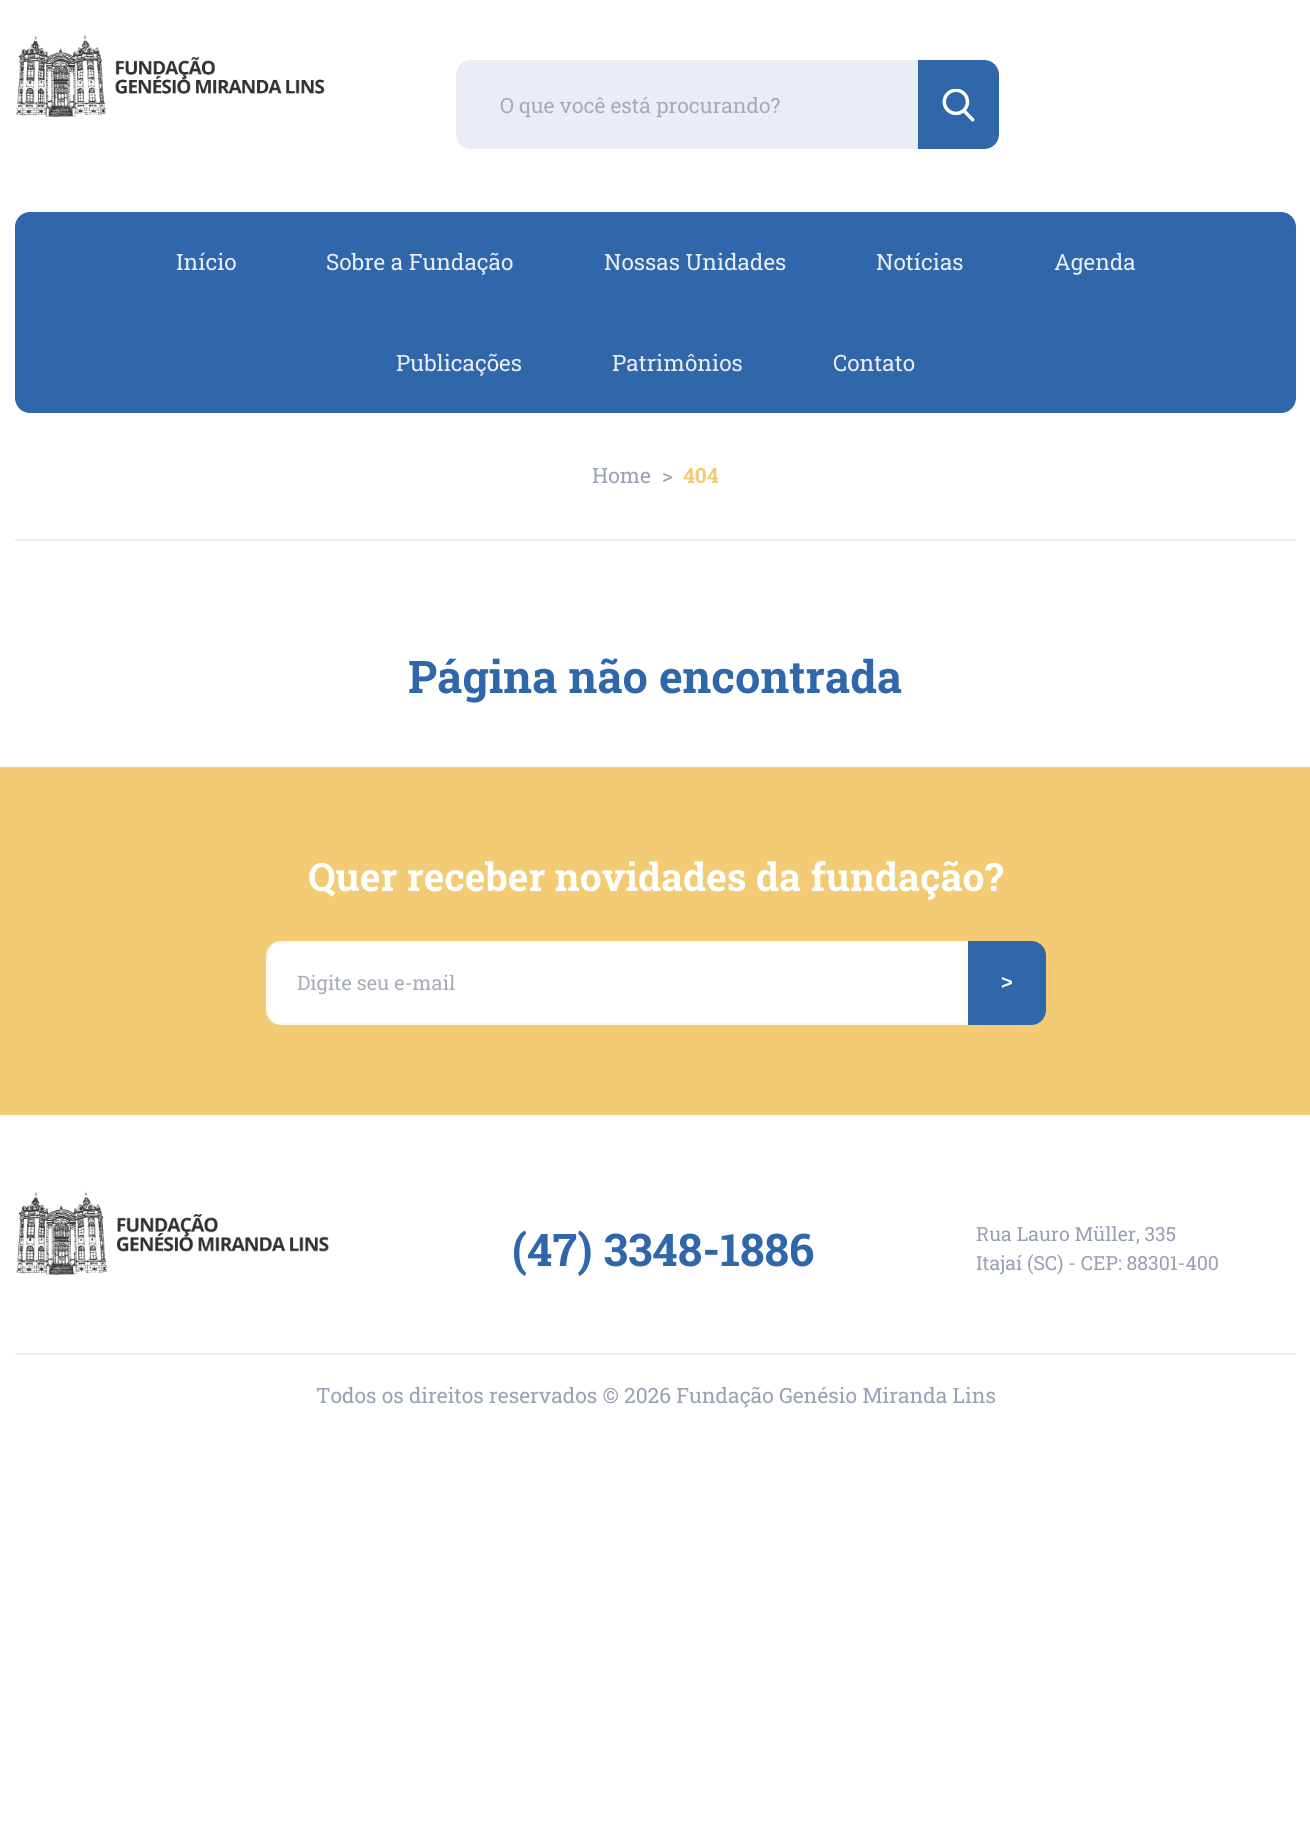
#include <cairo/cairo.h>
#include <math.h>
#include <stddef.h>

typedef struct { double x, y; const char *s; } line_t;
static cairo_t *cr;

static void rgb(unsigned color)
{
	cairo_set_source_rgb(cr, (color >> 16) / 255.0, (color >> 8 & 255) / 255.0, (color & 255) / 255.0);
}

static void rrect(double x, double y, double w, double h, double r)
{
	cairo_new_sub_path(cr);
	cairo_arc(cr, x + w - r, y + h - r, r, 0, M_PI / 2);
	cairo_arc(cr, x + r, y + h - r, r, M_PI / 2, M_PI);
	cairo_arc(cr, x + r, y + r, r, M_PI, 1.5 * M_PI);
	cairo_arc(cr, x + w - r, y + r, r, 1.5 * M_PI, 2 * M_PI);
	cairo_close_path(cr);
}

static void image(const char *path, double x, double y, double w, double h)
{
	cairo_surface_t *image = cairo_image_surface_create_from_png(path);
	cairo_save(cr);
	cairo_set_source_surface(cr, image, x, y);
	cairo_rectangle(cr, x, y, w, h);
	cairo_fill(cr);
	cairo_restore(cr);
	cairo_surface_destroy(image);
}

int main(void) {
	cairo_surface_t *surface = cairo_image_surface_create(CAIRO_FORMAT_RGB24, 1310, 1838);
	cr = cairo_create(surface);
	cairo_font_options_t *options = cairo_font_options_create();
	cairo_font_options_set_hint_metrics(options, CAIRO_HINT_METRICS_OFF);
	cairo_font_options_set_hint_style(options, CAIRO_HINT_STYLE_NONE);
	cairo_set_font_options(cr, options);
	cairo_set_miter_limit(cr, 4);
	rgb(0xffffff);
	cairo_paint(cr);
	image("img/1.png", 16, 34, 309, 83);
	rgb(0xebedf5);
	cairo_new_path(cr);
	cairo_move_to(cr, 471, 60);
	cairo_line_to(cr, 918, 60);
	cairo_line_to(cr, 918, 149);
	cairo_line_to(cr, 471, 149);
	cairo_curve_to(cr, 462.5, 149, 456, 142.5, 456, 134);
	cairo_line_to(cr, 456, 75);
	cairo_curve_to(cr, 456, 66.5, 462.5, 60, 471, 60);
	cairo_close_path(cr);
	cairo_fill(cr);
	rgb(0x2f67aa);
	cairo_new_path(cr);
	cairo_move_to(cr, 918, 60);
	cairo_line_to(cr, 984, 60);
	cairo_curve_to(cr, 992.5, 60, 999, 66.5, 999, 75);
	cairo_line_to(cr, 999, 134);
	cairo_curve_to(cr, 999, 142.5, 992.5, 149, 984, 149);
	cairo_line_to(cr, 918, 149);
	cairo_close_path(cr);
	cairo_fill(cr);
	image("img/2.png", 942, 89, 33, 33);
	rrect(15, 212, 1281, 201, 15);
	cairo_fill(cr);
	rgb(0xebedf5);
	cairo_rectangle(cr, 15, 539, 1281, 2);
	cairo_fill(cr);
	rgb(0xf2cb74);
	cairo_rectangle(cr, 0, 767, 1310, 348);
	cairo_fill(cr);
	rgb(0xffffff);
	cairo_new_path(cr);
	cairo_move_to(cr, 281, 942);
	cairo_line_to(cr, 967, 942);
	cairo_line_to(cr, 967, 1024);
	cairo_line_to(cr, 281, 1024);
	cairo_curve_to(cr, 273.5, 1024, 267, 1017.5, 267, 1010);
	cairo_line_to(cr, 267, 956);
	cairo_curve_to(cr, 267, 948.5, 273.5, 942, 281, 942);
	cairo_close_path(cr);
	cairo_fill_preserve(cr);
	rgb(0xfdf8ec);
	cairo_stroke(cr);
	rgb(0x2f67aa);
	cairo_new_path(cr);
	cairo_move_to(cr, 968, 941);
	cairo_line_to(cr, 1031, 941);
	cairo_curve_to(cr, 1039.5, 941, 1046, 947.5, 1046, 956);
	cairo_line_to(cr, 1046, 1010);
	cairo_curve_to(cr, 1046, 1018.5, 1039.5, 1025, 1031, 1025);
	cairo_line_to(cr, 968, 1025);
	cairo_close_path(cr);
	cairo_fill(cr);
	image("img/3.png", 16, 1191, 313, 84);
	rgb(0xebedf5);
	cairo_rectangle(cr, 15, 1353, 1281, 2);
	cairo_fill(cr);
	cairo_select_font_face(cr, "Roboto Slab", CAIRO_FONT_SLANT_NORMAL, CAIRO_FONT_WEIGHT_NORMAL);
	cairo_set_font_size(cr, 21);
	rgb(0xa6acb7);
	cairo_move_to(cr, 500, 113);
	cairo_show_text(cr, "O que você está procurando?");
	cairo_set_font_size(cr, 22.5);
	rgb(0xebedf5);
	{
		static const line_t items[] = {
			{176, 270, "Início"},
			{326, 270, "Sobre a Fundação"},
			{604, 270, "Nossas Unidades"},
			{876, 270, "Notícias"},
			{1054, 270, "Agenda"},
			{396, 371, "Publicações"},
			{612, 371, "Patrimônios"},
			{833, 371, "Contato"},
		};
		for (size_t i = 0; i < sizeof items / sizeof *items; i++) {
			cairo_move_to(cr, items[i].x, items[i].y);
			cairo_show_text(cr, items[i].s);
		}
	}
	cairo_set_font_size(cr, 21);
	rgb(0x98a1b3);
	cairo_move_to(cr, 592, 483);
	cairo_show_text(cr, "Home");
	cairo_move_to(cr, 662, 483);
	cairo_show_text(cr, ">");
	cairo_select_font_face(cr, "Roboto Slab", CAIRO_FONT_SLANT_NORMAL, CAIRO_FONT_WEIGHT_BOLD);
	rgb(0xf2cb74);
	cairo_move_to(cr, 683, 483);
	cairo_show_text(cr, "404");
	cairo_set_font_size(cr, 45);
	rgb(0x2f67aa);
	cairo_move_to(cr, 408, 693);
	cairo_show_text(cr, "Página não encontrada");
	cairo_set_font_size(cr, 39);
	rgb(0xffffff);
	cairo_move_to(cr, 308, 891);
	cairo_show_text(cr, "Quer receber novidades da fundação?");
	cairo_select_font_face(cr, "Roboto Slab", CAIRO_FONT_SLANT_NORMAL, CAIRO_FONT_WEIGHT_NORMAL);
	cairo_set_font_size(cr, 20);
	rgb(0xa6acb7);
	cairo_move_to(cr, 297, 990);
	cairo_show_text(cr, "Digite seu e-mail");
	cairo_select_font_face(cr, "Liberation Sans", CAIRO_FONT_SLANT_NORMAL, CAIRO_FONT_WEIGHT_BOLD);
	rgb(0xffffff);
	cairo_move_to(cr, 1001, 989);
	cairo_show_text(cr, ">");
	cairo_select_font_face(cr, "Roboto Slab", CAIRO_FONT_SLANT_NORMAL, CAIRO_FONT_WEIGHT_BOLD);
	cairo_set_font_size(cr, 45);
	rgb(0x2f67aa);
	cairo_move_to(cr, 512, 1266);
	cairo_show_text(cr, "(47) 3348-1886");
	cairo_select_font_face(cr, "Roboto Slab", CAIRO_FONT_SLANT_NORMAL, CAIRO_FONT_WEIGHT_NORMAL);
	cairo_set_font_size(cr, 19.5);
	rgb(0x98a1b3);
	cairo_move_to(cr, 976, 1241);
	cairo_show_text(cr, "Rua Lauro Müller, 335");
	cairo_move_to(cr, 976, 1270);
	cairo_show_text(cr, "Itajaí (SC) - CEP: 88301-400");
	cairo_set_font_size(cr, 21);
	cairo_move_to(cr, 316, 1403);
	cairo_show_text(cr, "Todos os direitos reservados © 2026 Fundação Genésio Miranda Lins");
	cairo_surface_write_to_png(surface, "page.png");
	cairo_font_options_destroy(options);
	cairo_destroy(cr);
	cairo_surface_destroy(surface);
	return 0;
}
